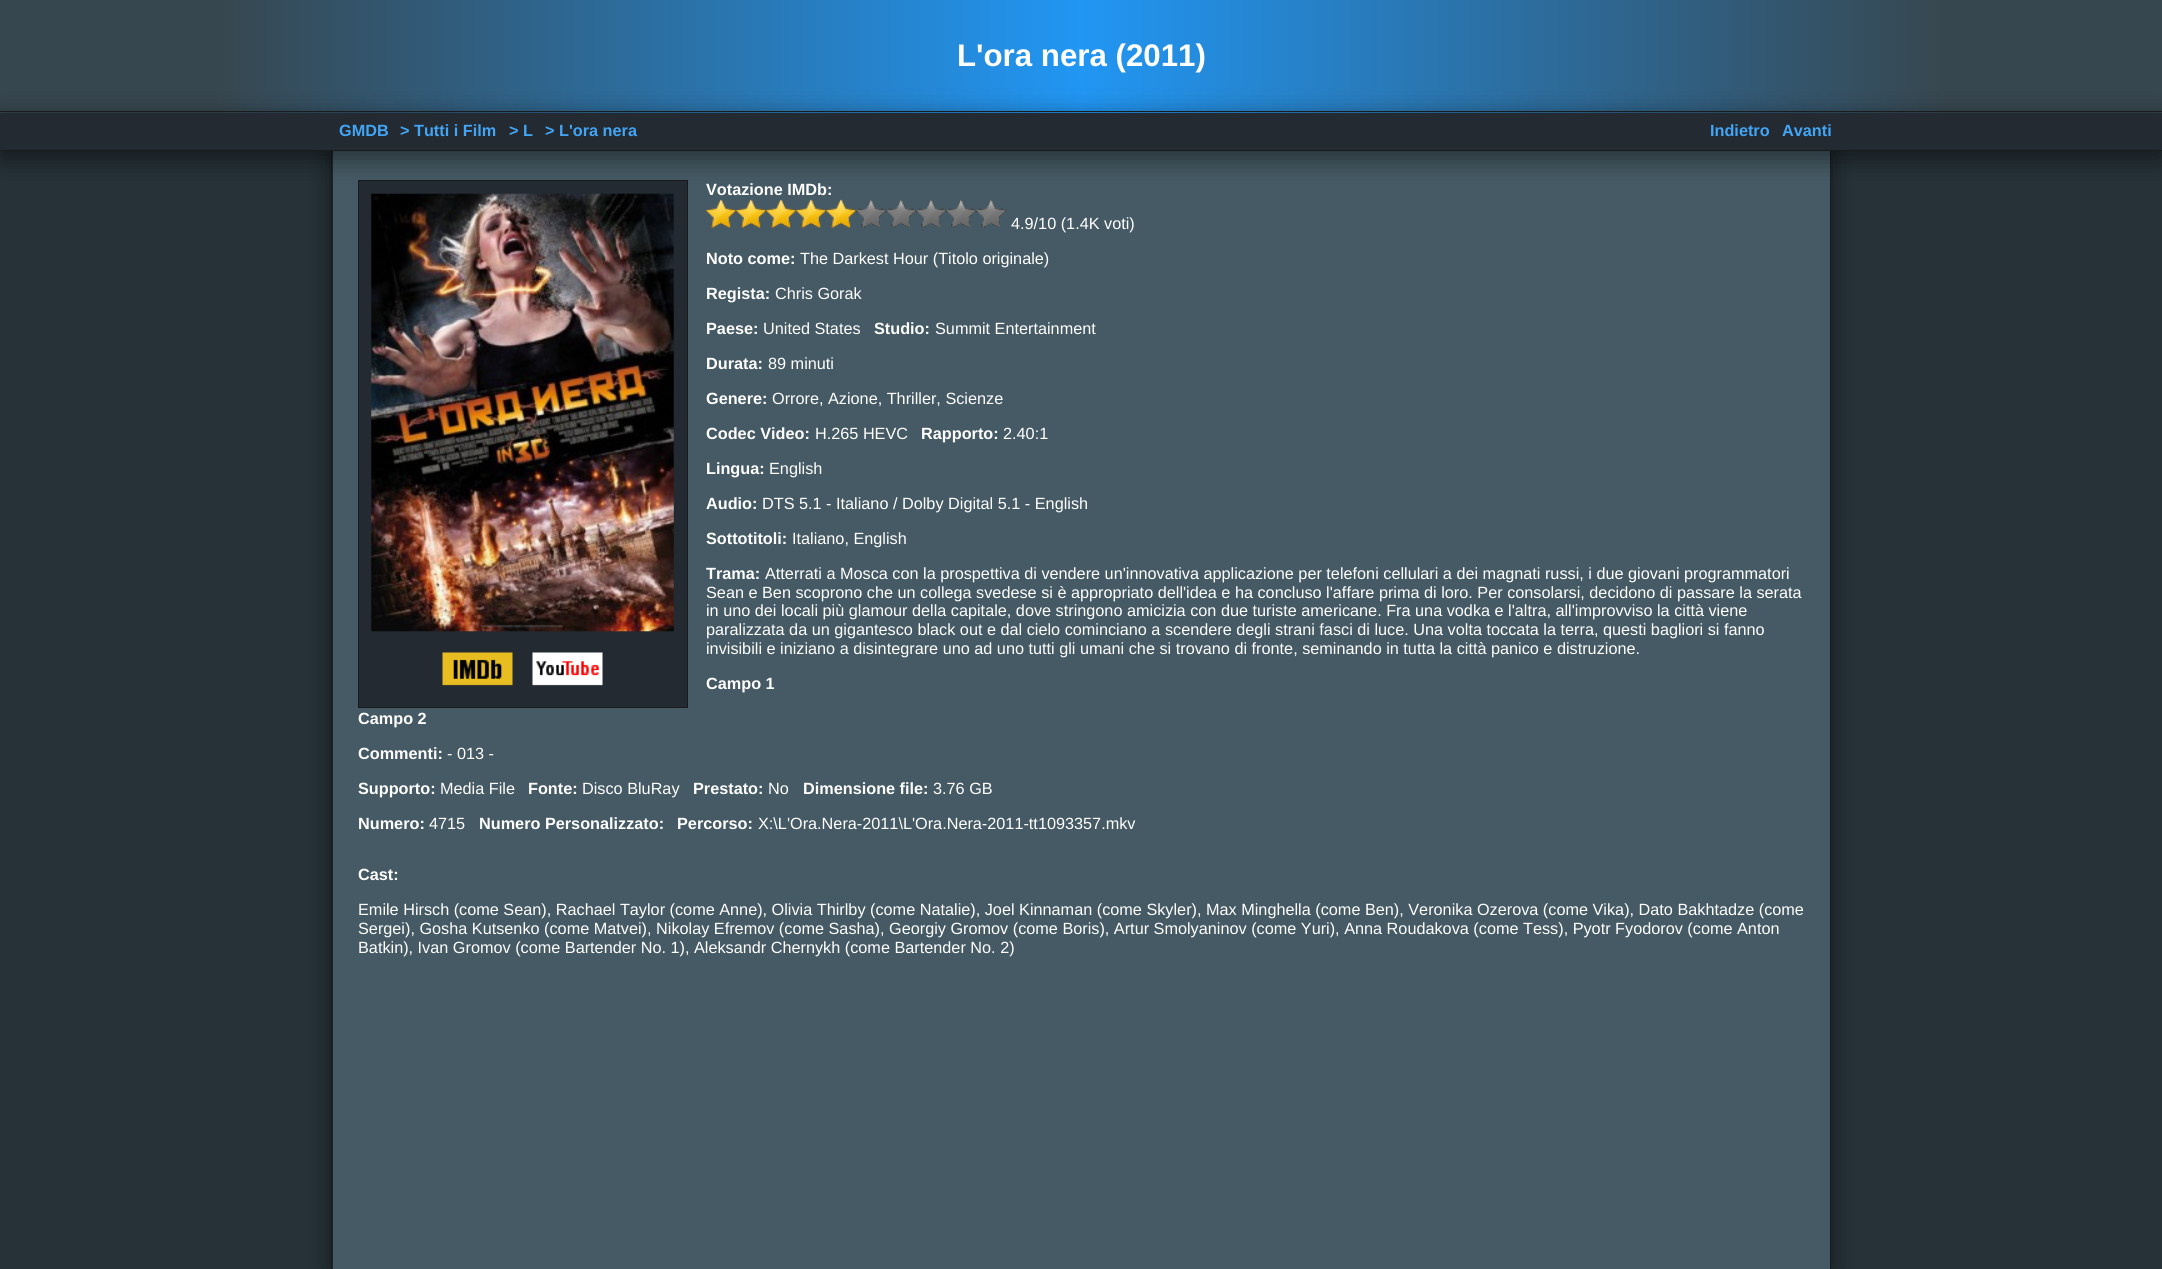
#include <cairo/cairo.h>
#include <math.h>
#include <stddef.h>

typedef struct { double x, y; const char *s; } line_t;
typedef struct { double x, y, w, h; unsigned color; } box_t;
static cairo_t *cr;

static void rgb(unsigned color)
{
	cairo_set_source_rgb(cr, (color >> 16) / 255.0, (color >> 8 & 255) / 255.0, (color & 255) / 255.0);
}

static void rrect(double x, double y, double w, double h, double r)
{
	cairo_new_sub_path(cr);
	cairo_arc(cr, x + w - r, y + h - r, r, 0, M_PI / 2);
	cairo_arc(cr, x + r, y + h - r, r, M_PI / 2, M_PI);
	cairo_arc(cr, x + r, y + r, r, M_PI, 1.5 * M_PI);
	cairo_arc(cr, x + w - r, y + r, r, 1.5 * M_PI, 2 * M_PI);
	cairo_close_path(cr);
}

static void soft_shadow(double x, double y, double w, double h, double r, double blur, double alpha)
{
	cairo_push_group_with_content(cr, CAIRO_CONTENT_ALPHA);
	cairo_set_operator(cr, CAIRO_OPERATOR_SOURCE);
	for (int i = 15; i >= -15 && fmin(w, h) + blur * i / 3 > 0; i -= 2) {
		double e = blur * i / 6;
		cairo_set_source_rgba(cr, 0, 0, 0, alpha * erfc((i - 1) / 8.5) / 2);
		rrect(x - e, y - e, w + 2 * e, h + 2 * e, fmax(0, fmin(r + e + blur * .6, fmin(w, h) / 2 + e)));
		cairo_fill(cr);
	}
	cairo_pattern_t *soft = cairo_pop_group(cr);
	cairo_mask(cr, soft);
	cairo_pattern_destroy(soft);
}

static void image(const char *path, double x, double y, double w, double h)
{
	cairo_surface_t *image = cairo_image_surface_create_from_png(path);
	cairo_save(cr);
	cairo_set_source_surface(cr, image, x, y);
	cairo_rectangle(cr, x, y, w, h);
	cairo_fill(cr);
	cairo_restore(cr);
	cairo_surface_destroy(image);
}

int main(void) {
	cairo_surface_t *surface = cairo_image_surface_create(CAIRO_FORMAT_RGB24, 2162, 1269);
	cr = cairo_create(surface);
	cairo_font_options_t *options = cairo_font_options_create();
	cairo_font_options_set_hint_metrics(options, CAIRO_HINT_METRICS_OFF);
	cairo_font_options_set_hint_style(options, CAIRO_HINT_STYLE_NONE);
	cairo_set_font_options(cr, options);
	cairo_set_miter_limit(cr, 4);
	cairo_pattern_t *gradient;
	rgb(0x263238);
	cairo_paint(cr);
	rgb(0x000000);
	soft_shadow(331, 151, 1500, 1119, 0, 12.5, 0.5);
	gradient = cairo_pattern_create_linear(0, 76, 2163, 76);
	cairo_pattern_add_color_stop_rgba(gradient, 0.1, 0.216, 0.278, 0.31, 1);
	cairo_pattern_add_color_stop_rgba(gradient, 0.5, 0.129, 0.588, 0.953, 1);
	cairo_pattern_add_color_stop_rgba(gradient, 0.9, 0.216, 0.278, 0.31, 1);
	cairo_set_source(cr, gradient);
	cairo_pattern_destroy(gradient);
	cairo_rectangle(cr, 0, 0, 2162, 113);
	cairo_fill(cr);
	{
		static const box_t items[] = {
			{333, 151, 1497, 1118, 0x455a64},
			{1830, 151, 1, 1118, 0x181c1f},
			{331, 151, 1, 1118, 0x181c1f},
		};
		for (size_t i = 0; i < sizeof items / sizeof *items; i++) {
			rgb(items[i].color);
			cairo_rectangle(cr, items[i].x, items[i].y, items[i].w, items[i].h);
			cairo_fill(cr);
		}
	}
	rgb(0x232a31);
	cairo_rectangle(cr, 358.5, 180.5, 329, 527);
	cairo_fill_preserve(cr);
	rgb(0x181c1f);
	cairo_set_line_width(cr, 1);
	cairo_stroke(cr);
	image("img/1.png", 371, 193, 303, 439);
	rgb(0x000000);
	soft_shadow(0, 118, 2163, 40, 0, 12.5, 0.5);
	{
		static const box_t items[] = {
			{0, 113, 2162, 37, 0x232a31},
			{0, 111, 2162, 1, 0x181c1f},
			{0, 150, 2162, 1, 0x181c1f},
		};
		for (size_t i = 0; i < sizeof items / sizeof *items; i++) {
			rgb(items[i].color);
			cairo_rectangle(cr, items[i].x, items[i].y, items[i].w, items[i].h);
			cairo_fill(cr);
		}
	}
	image("img/2.png", 442, 652, 71, 34);
	image("img/3.png", 532, 652, 71, 34);
	image("img/4.png", 706, 199, 31, 29);
	image("img/5.png", 736, 199, 31, 29);
	image("img/5.png", 766, 199, 31, 29);
	image("img/5.png", 796, 199, 31, 29);
	image("img/5.png", 826, 199, 31, 29);
	image("img/6.png", 856, 200, 31, 28);
	image("img/7.png", 886, 200, 31, 28);
	image("img/7.png", 916, 200, 31, 28);
	image("img/7.png", 946, 200, 31, 28);
	image("img/7.png", 976, 200, 31, 28);
	cairo_select_font_face(cr, "Liberation Sans", CAIRO_FONT_SLANT_NORMAL, CAIRO_FONT_WEIGHT_BOLD);
	cairo_set_font_size(cr, 31.25);
	rgb(0xffffff);
	cairo_move_to(cr, 957, 66);
	cairo_show_text(cr, "L'ora nera (2011)");
	cairo_set_font_size(cr, 16.25);
	rgb(0x42a5f5);
	{
		static const line_t items[] = {
			{339, 136, "GMDB"},
			{400, 136, "> Tutti i Film"},
			{509, 136, "> L"},
			{545, 136, "> L'ora nera"},
			{1710, 136, "Indietro"},
			{1782, 136, "Avanti"},
		};
		for (size_t i = 0; i < sizeof items / sizeof *items; i++) {
			cairo_move_to(cr, items[i].x, items[i].y);
			cairo_show_text(cr, items[i].s);
		}
	}
	rgb(0xffffff);
	cairo_move_to(cr, 706, 195);
	cairo_show_text(cr, "Votazione IMDb:");
	cairo_select_font_face(cr, "Liberation Sans", CAIRO_FONT_SLANT_NORMAL, CAIRO_FONT_WEIGHT_NORMAL);
	cairo_move_to(cr, 1011, 229);
	cairo_show_text(cr, "4.9/10 (1.4K voti)");
	cairo_select_font_face(cr, "Liberation Sans", CAIRO_FONT_SLANT_NORMAL, CAIRO_FONT_WEIGHT_BOLD);
	cairo_move_to(cr, 706, 264);
	cairo_show_text(cr, "Noto come:");
	cairo_select_font_face(cr, "Liberation Sans", CAIRO_FONT_SLANT_NORMAL, CAIRO_FONT_WEIGHT_NORMAL);
	cairo_move_to(cr, 800, 264);
	cairo_show_text(cr, "The Darkest Hour (Titolo originale)");
	cairo_select_font_face(cr, "Liberation Sans", CAIRO_FONT_SLANT_NORMAL, CAIRO_FONT_WEIGHT_BOLD);
	cairo_move_to(cr, 706, 299);
	cairo_show_text(cr, "Regista:");
	cairo_select_font_face(cr, "Liberation Sans", CAIRO_FONT_SLANT_NORMAL, CAIRO_FONT_WEIGHT_NORMAL);
	cairo_move_to(cr, 775, 299);
	cairo_show_text(cr, "Chris Gorak");
	cairo_select_font_face(cr, "Liberation Sans", CAIRO_FONT_SLANT_NORMAL, CAIRO_FONT_WEIGHT_BOLD);
	cairo_move_to(cr, 706, 334);
	cairo_show_text(cr, "Paese:");
	cairo_select_font_face(cr, "Liberation Sans", CAIRO_FONT_SLANT_NORMAL, CAIRO_FONT_WEIGHT_NORMAL);
	cairo_move_to(cr, 763, 334);
	cairo_show_text(cr, "United States");
	cairo_select_font_face(cr, "Liberation Sans", CAIRO_FONT_SLANT_NORMAL, CAIRO_FONT_WEIGHT_BOLD);
	cairo_move_to(cr, 874, 334);
	cairo_show_text(cr, "Studio:");
	cairo_select_font_face(cr, "Liberation Sans", CAIRO_FONT_SLANT_NORMAL, CAIRO_FONT_WEIGHT_NORMAL);
	cairo_move_to(cr, 935, 334);
	cairo_show_text(cr, "Summit Entertainment");
	cairo_select_font_face(cr, "Liberation Sans", CAIRO_FONT_SLANT_NORMAL, CAIRO_FONT_WEIGHT_BOLD);
	cairo_move_to(cr, 706, 369);
	cairo_show_text(cr, "Durata:");
	cairo_select_font_face(cr, "Liberation Sans", CAIRO_FONT_SLANT_NORMAL, CAIRO_FONT_WEIGHT_NORMAL);
	cairo_move_to(cr, 768, 369);
	cairo_show_text(cr, "89 minuti");
	cairo_select_font_face(cr, "Liberation Sans", CAIRO_FONT_SLANT_NORMAL, CAIRO_FONT_WEIGHT_BOLD);
	cairo_move_to(cr, 706, 404);
	cairo_show_text(cr, "Genere:");
	cairo_select_font_face(cr, "Liberation Sans", CAIRO_FONT_SLANT_NORMAL, CAIRO_FONT_WEIGHT_NORMAL);
	cairo_move_to(cr, 772, 404);
	cairo_show_text(cr, "Orrore, Azione, Thriller, Scienze");
	cairo_select_font_face(cr, "Liberation Sans", CAIRO_FONT_SLANT_NORMAL, CAIRO_FONT_WEIGHT_BOLD);
	cairo_move_to(cr, 706, 439);
	cairo_show_text(cr, "Codec Video:");
	cairo_select_font_face(cr, "Liberation Sans", CAIRO_FONT_SLANT_NORMAL, CAIRO_FONT_WEIGHT_NORMAL);
	cairo_move_to(cr, 815, 439);
	cairo_show_text(cr, "H.265 HEVC");
	cairo_select_font_face(cr, "Liberation Sans", CAIRO_FONT_SLANT_NORMAL, CAIRO_FONT_WEIGHT_BOLD);
	cairo_move_to(cr, 921, 439);
	cairo_show_text(cr, "Rapporto:");
	cairo_select_font_face(cr, "Liberation Sans", CAIRO_FONT_SLANT_NORMAL, CAIRO_FONT_WEIGHT_NORMAL);
	cairo_move_to(cr, 1003, 439);
	cairo_show_text(cr, "2.40:1");
	cairo_select_font_face(cr, "Liberation Sans", CAIRO_FONT_SLANT_NORMAL, CAIRO_FONT_WEIGHT_BOLD);
	cairo_move_to(cr, 706, 474);
	cairo_show_text(cr, "Lingua:");
	cairo_select_font_face(cr, "Liberation Sans", CAIRO_FONT_SLANT_NORMAL, CAIRO_FONT_WEIGHT_NORMAL);
	cairo_move_to(cr, 769, 474);
	cairo_show_text(cr, "English");
	cairo_select_font_face(cr, "Liberation Sans", CAIRO_FONT_SLANT_NORMAL, CAIRO_FONT_WEIGHT_BOLD);
	cairo_move_to(cr, 706, 509);
	cairo_show_text(cr, "Audio:");
	cairo_select_font_face(cr, "Liberation Sans", CAIRO_FONT_SLANT_NORMAL, CAIRO_FONT_WEIGHT_NORMAL);
	cairo_move_to(cr, 762, 509);
	cairo_show_text(cr, "DTS 5.1 - Italiano / Dolby Digital 5.1 - English");
	cairo_select_font_face(cr, "Liberation Sans", CAIRO_FONT_SLANT_NORMAL, CAIRO_FONT_WEIGHT_BOLD);
	cairo_move_to(cr, 706, 544);
	cairo_show_text(cr, "Sottotitoli:");
	cairo_select_font_face(cr, "Liberation Sans", CAIRO_FONT_SLANT_NORMAL, CAIRO_FONT_WEIGHT_NORMAL);
	cairo_move_to(cr, 792, 544);
	cairo_show_text(cr, "Italiano, English");
	cairo_select_font_face(cr, "Liberation Sans", CAIRO_FONT_SLANT_NORMAL, CAIRO_FONT_WEIGHT_BOLD);
	cairo_move_to(cr, 706, 579);
	cairo_show_text(cr, "Trama:");
	cairo_select_font_face(cr, "Liberation Sans", CAIRO_FONT_SLANT_NORMAL, CAIRO_FONT_WEIGHT_NORMAL);
	{
		static const line_t items[] = {
			{765, 579, "Atterrati a Mosca con la prospettiva di vendere un'innovativa applicazione per telefoni cellulari a dei magnati russi, i due giovani programmatori"},
			{706, 598, "Sean e Ben scoprono che un collega svedese si è appropriato dell'idea e ha concluso l'affare prima di loro. Per consolarsi, decidono di passare la serata"},
			{706, 616, "in uno dei locali più glamour della capitale, dove stringono amicizia con due turiste americane. Fra una vodka e l'altra, all'improvviso la città viene"},
			{706, 635, "paralizzata da un gigantesco black out e dal cielo cominciano a scendere degli strani fasci di luce. Una volta toccata la terra, questi bagliori si fanno"},
			{706, 654, "invisibili e iniziano a disintegrare uno ad uno tutti gli umani che si trovano di fronte, seminando in tutta la città panico e distruzione."},
		};
		for (size_t i = 0; i < sizeof items / sizeof *items; i++) {
			cairo_move_to(cr, items[i].x, items[i].y);
			cairo_show_text(cr, items[i].s);
		}
	}
	cairo_select_font_face(cr, "Liberation Sans", CAIRO_FONT_SLANT_NORMAL, CAIRO_FONT_WEIGHT_BOLD);
	{
		static const line_t items[] = {
			{706, 689, "Campo 1"},
			{358, 724, "Campo 2"},
			{358, 759, "Commenti:"},
		};
		for (size_t i = 0; i < sizeof items / sizeof *items; i++) {
			cairo_move_to(cr, items[i].x, items[i].y);
			cairo_show_text(cr, items[i].s);
		}
	}
	cairo_select_font_face(cr, "Liberation Sans", CAIRO_FONT_SLANT_NORMAL, CAIRO_FONT_WEIGHT_NORMAL);
	cairo_move_to(cr, 447, 759);
	cairo_show_text(cr, "- 013 -");
	cairo_select_font_face(cr, "Liberation Sans", CAIRO_FONT_SLANT_NORMAL, CAIRO_FONT_WEIGHT_BOLD);
	cairo_move_to(cr, 358, 794);
	cairo_show_text(cr, "Supporto:");
	cairo_select_font_face(cr, "Liberation Sans", CAIRO_FONT_SLANT_NORMAL, CAIRO_FONT_WEIGHT_NORMAL);
	cairo_move_to(cr, 440, 794);
	cairo_show_text(cr, "Media File");
	cairo_select_font_face(cr, "Liberation Sans", CAIRO_FONT_SLANT_NORMAL, CAIRO_FONT_WEIGHT_BOLD);
	cairo_move_to(cr, 528, 794);
	cairo_show_text(cr, "Fonte:");
	cairo_select_font_face(cr, "Liberation Sans", CAIRO_FONT_SLANT_NORMAL, CAIRO_FONT_WEIGHT_NORMAL);
	cairo_move_to(cr, 582, 794);
	cairo_show_text(cr, "Disco BluRay");
	cairo_select_font_face(cr, "Liberation Sans", CAIRO_FONT_SLANT_NORMAL, CAIRO_FONT_WEIGHT_BOLD);
	cairo_move_to(cr, 693, 794);
	cairo_show_text(cr, "Prestato:");
	cairo_select_font_face(cr, "Liberation Sans", CAIRO_FONT_SLANT_NORMAL, CAIRO_FONT_WEIGHT_NORMAL);
	cairo_move_to(cr, 768, 794);
	cairo_show_text(cr, "No");
	cairo_select_font_face(cr, "Liberation Sans", CAIRO_FONT_SLANT_NORMAL, CAIRO_FONT_WEIGHT_BOLD);
	cairo_move_to(cr, 803, 794);
	cairo_show_text(cr, "Dimensione file:");
	cairo_select_font_face(cr, "Liberation Sans", CAIRO_FONT_SLANT_NORMAL, CAIRO_FONT_WEIGHT_NORMAL);
	cairo_move_to(cr, 933, 794);
	cairo_show_text(cr, "3.76 GB");
	cairo_select_font_face(cr, "Liberation Sans", CAIRO_FONT_SLANT_NORMAL, CAIRO_FONT_WEIGHT_BOLD);
	cairo_move_to(cr, 358, 829);
	cairo_show_text(cr, "Numero:");
	cairo_select_font_face(cr, "Liberation Sans", CAIRO_FONT_SLANT_NORMAL, CAIRO_FONT_WEIGHT_NORMAL);
	cairo_move_to(cr, 429, 829);
	cairo_show_text(cr, "4715");
	cairo_select_font_face(cr, "Liberation Sans", CAIRO_FONT_SLANT_NORMAL, CAIRO_FONT_WEIGHT_BOLD);
	cairo_move_to(cr, 479, 829);
	cairo_show_text(cr, "Numero Personalizzato:");
	cairo_move_to(cr, 677, 829);
	cairo_show_text(cr, "Percorso:");
	cairo_select_font_face(cr, "Liberation Sans", CAIRO_FONT_SLANT_NORMAL, CAIRO_FONT_WEIGHT_NORMAL);
	cairo_move_to(cr, 758, 829);
	cairo_show_text(cr, "X:\\L'Ora.Nera-2011\\L'Ora.Nera-2011-tt1093357.mkv");
	cairo_select_font_face(cr, "Liberation Sans", CAIRO_FONT_SLANT_NORMAL, CAIRO_FONT_WEIGHT_BOLD);
	cairo_move_to(cr, 358, 880);
	cairo_show_text(cr, "Cast:");
	cairo_select_font_face(cr, "Liberation Sans", CAIRO_FONT_SLANT_NORMAL, CAIRO_FONT_WEIGHT_NORMAL);
	{
		static const line_t items[] = {
			{358, 915, "Emile Hirsch (come Sean), Rachael Taylor (come Anne), Olivia Thirlby (come Natalie), Joel Kinnaman (come Skyler), Max Minghella (come Ben), Veronika Ozerova (come Vika), Dato Bakhtadze (come"},
			{358, 934, "Sergei), Gosha Kutsenko (come Matvei), Nikolay Efremov (come Sasha), Georgiy Gromov (come Boris), Artur Smolyaninov (come Yuri), Anna Roudakova (come Tess), Pyotr Fyodorov (come Anton"},
			{358, 953, "Batkin), Ivan Gromov (come Bartender No. 1), Aleksandr Chernykh (come Bartender No. 2)"},
		};
		for (size_t i = 0; i < sizeof items / sizeof *items; i++) {
			cairo_move_to(cr, items[i].x, items[i].y);
			cairo_show_text(cr, items[i].s);
		}
	}
	cairo_surface_write_to_png(surface, "page.png");
	cairo_font_options_destroy(options);
	cairo_destroy(cr);
	cairo_surface_destroy(surface);
	return 0;
}
